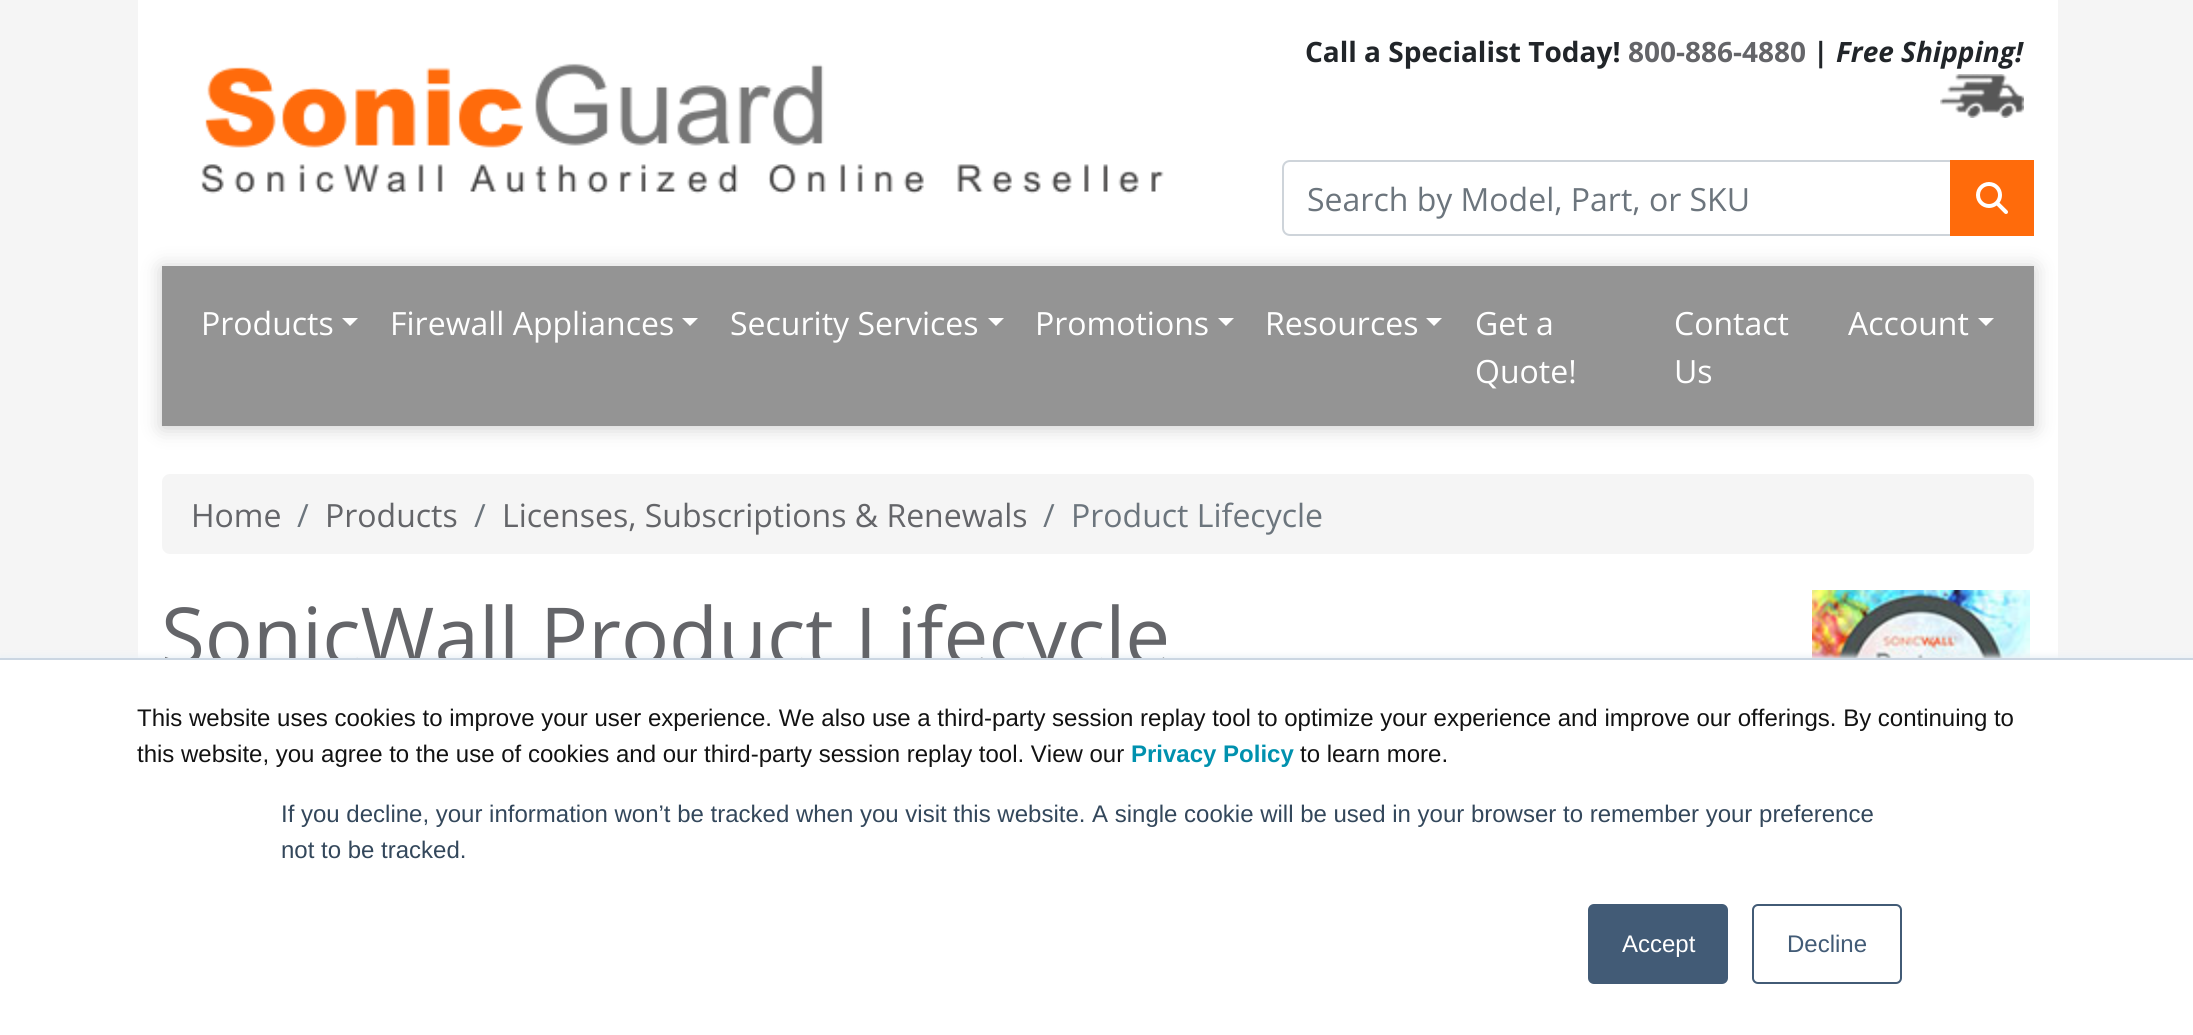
#include <cairo/cairo.h>
#include <math.h>
#include <stddef.h>

typedef struct { double x, y; const char *s; } line_t;
static cairo_t *cr;

static void rgb(unsigned color)
{
	cairo_set_source_rgb(cr, (color >> 16) / 255.0, (color >> 8 & 255) / 255.0, (color & 255) / 255.0);
}

static void rrect(double x, double y, double w, double h, double r)
{
	cairo_new_sub_path(cr);
	cairo_arc(cr, x + w - r, y + h - r, r, 0, M_PI / 2);
	cairo_arc(cr, x + r, y + h - r, r, M_PI / 2, M_PI);
	cairo_arc(cr, x + r, y + r, r, M_PI, 1.5 * M_PI);
	cairo_arc(cr, x + w - r, y + r, r, 1.5 * M_PI, 2 * M_PI);
	cairo_close_path(cr);
}

static void soft_shadow(double x, double y, double w, double h, double r, double blur, double alpha)
{
	cairo_push_group_with_content(cr, CAIRO_CONTENT_ALPHA);
	cairo_set_operator(cr, CAIRO_OPERATOR_SOURCE);
	for (int i = 15; i >= -15 && fmin(w, h) + blur * i / 3 > 0; i -= 2) {
		double e = blur * i / 6;
		cairo_set_source_rgba(cr, 0, 0, 0, alpha * erfc((i - 1) / 8.5) / 2);
		rrect(x - e, y - e, w + 2 * e, h + 2 * e, fmax(0, fmin(r + e + blur * .6, fmin(w, h) / 2 + e)));
		cairo_fill(cr);
	}
	cairo_pattern_t *soft = cairo_pop_group(cr);
	cairo_mask(cr, soft);
	cairo_pattern_destroy(soft);
}

static void image(const char *path, double x, double y, double w, double h)
{
	cairo_surface_t *image = cairo_image_surface_create_from_png(path);
	cairo_save(cr);
	cairo_set_source_surface(cr, image, x, y);
	cairo_rectangle(cr, x, y, w, h);
	cairo_fill(cr);
	cairo_restore(cr);
	cairo_surface_destroy(image);
}

int main(void) {
	cairo_surface_t *surface = cairo_image_surface_create(CAIRO_FORMAT_RGB24, 2193, 1035);
	cr = cairo_create(surface);
	cairo_font_options_t *options = cairo_font_options_create();
	cairo_font_options_set_hint_metrics(options, CAIRO_HINT_METRICS_OFF);
	cairo_font_options_set_hint_style(options, CAIRO_HINT_STYLE_NONE);
	cairo_set_font_options(cr, options);
	cairo_set_miter_limit(cr, 4);
	rgb(0xf5f5f5);
	cairo_paint(cr);
	rgb(0xffffff);
	cairo_rectangle(cr, 138, 0, 1920, 658);
	cairo_fill(cr);
	image("img/1.png", 201, 63, 963, 131);
	image("img/2.png", 1940, 74, 84, 44);
	cairo_new_path(cr);
	cairo_move_to(cr, 1290, 161);
	cairo_line_to(cr, 1951, 161);
	cairo_line_to(cr, 1951, 235);
	cairo_line_to(cr, 1290, 235);
	cairo_curve_to(cr, 1286, 235, 1283, 232, 1283, 228);
	cairo_line_to(cr, 1283, 168);
	cairo_curve_to(cr, 1283, 164, 1286, 161, 1290, 161);
	cairo_close_path(cr);
	rgb(0xced4da);
	cairo_stroke(cr);
	rgb(0xff6b0b);
	cairo_rectangle(cr, 1950, 160, 84, 76);
	cairo_fill(cr);
	image("img/3.png", 1976, 182, 32, 32);
	rgb(0x000000);
	soft_shadow(162, 268, 1872, 160, 0, 10, 0.2);
	rgb(0x949494);
	cairo_rectangle(cr, 162, 266, 1872, 160);
	cairo_fill(cr);
	rgb(0xffffff);
	cairo_new_path(cr);
	cairo_move_to(cr, 342, 318);
	cairo_line_to(cr, 358, 318);
	cairo_line_to(cr, 350, 326);
	cairo_close_path(cr);
	cairo_fill(cr);
	cairo_new_path(cr);
	cairo_move_to(cr, 682, 318);
	cairo_line_to(cr, 698, 318);
	cairo_line_to(cr, 690, 326);
	cairo_close_path(cr);
	cairo_fill(cr);
	cairo_new_path(cr);
	cairo_move_to(cr, 988, 318);
	cairo_line_to(cr, 1004, 318);
	cairo_line_to(cr, 996, 326);
	cairo_close_path(cr);
	cairo_fill(cr);
	cairo_new_path(cr);
	cairo_move_to(cr, 1218, 318);
	cairo_line_to(cr, 1234, 318);
	cairo_line_to(cr, 1226, 326);
	cairo_close_path(cr);
	cairo_fill(cr);
	cairo_new_path(cr);
	cairo_move_to(cr, 1426, 318);
	cairo_line_to(cr, 1442, 318);
	cairo_line_to(cr, 1434, 326);
	cairo_close_path(cr);
	cairo_fill(cr);
	cairo_new_path(cr);
	cairo_move_to(cr, 1978, 318);
	cairo_line_to(cr, 1994, 318);
	cairo_line_to(cr, 1986, 326);
	cairo_close_path(cr);
	cairo_fill(cr);
	rgb(0xf5f5f5);
	rrect(162, 474, 1872, 80, 8);
	cairo_fill(cr);
	image("img/4.png", 1812, 590, 218, 68);
	rgb(0xeaf0f6);
	soft_shadow(0, 656, 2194, 378, 0, 3, 1);
	cairo_select_font_face(cr, "Open Sans", CAIRO_FONT_SLANT_NORMAL, CAIRO_FONT_WEIGHT_BOLD);
	cairo_set_font_size(cr, 28);
	rgb(0x212529);
	cairo_move_to(cr, 1305, 62);
	cairo_show_text(cr, "Call a Specialist Today!");
	rgb(0x646569);
	cairo_move_to(cr, 1628, 62);
	cairo_show_text(cr, "800-886-4880");
	rgb(0x212529);
	cairo_move_to(cr, 1813, 62);
	cairo_show_text(cr, "|");
	cairo_select_font_face(cr, "Open Sans", CAIRO_FONT_SLANT_ITALIC, CAIRO_FONT_WEIGHT_BOLD);
	cairo_move_to(cr, 1836, 62);
	cairo_show_text(cr, "Free Shipping!");
	cairo_select_font_face(cr, "Open Sans", CAIRO_FONT_SLANT_NORMAL, CAIRO_FONT_WEIGHT_NORMAL);
	cairo_set_font_size(cr, 32);
	rgb(0x6c757d);
	cairo_move_to(cr, 1307, 211);
	cairo_show_text(cr, "Search by Model, Part, or SKU");
	rgb(0xffffff);
	{
		static const line_t items[] = {
			{201, 335, "Products"},
			{390, 335, "Firewall Appliances"},
			{730, 335, "Security Services"},
			{1035, 335, "Promotions"},
			{1265, 335, "Resources"},
			{1475, 335, "Get a"},
			{1475, 383, "Quote!"},
			{1674, 335, "Contact"},
			{1674, 383, "Us"},
			{1848, 335, "Account"},
		};
		for (size_t i = 0; i < sizeof items / sizeof *items; i++) {
			cairo_move_to(cr, items[i].x, items[i].y);
			cairo_show_text(cr, items[i].s);
		}
	}
	rgb(0x646569);
	cairo_move_to(cr, 191, 527);
	cairo_show_text(cr, "Home");
	rgb(0x6c757d);
	cairo_move_to(cr, 297, 527);
	cairo_show_text(cr, "/");
	rgb(0x646569);
	cairo_move_to(cr, 325, 527);
	cairo_show_text(cr, "Products");
	rgb(0x6c757d);
	cairo_move_to(cr, 474, 527);
	cairo_show_text(cr, "/");
	rgb(0x646569);
	cairo_move_to(cr, 502, 527);
	cairo_show_text(cr, "Licenses, Subscriptions & Renewals");
	rgb(0x6c757d);
	cairo_move_to(cr, 1043, 527);
	cairo_show_text(cr, "/");
	cairo_move_to(cr, 1071, 527);
	cairo_show_text(cr, "Product Lifecycle");
	cairo_set_font_size(cr, 80);
	rgb(0x646569);
	cairo_move_to(cr, 161, 665);
	cairo_show_text(cr, "SonicWall Product Lifecycle");
	rgb(0xffffff);
	cairo_rectangle(cr, 0, 660, 2193, 375);
	cairo_fill(cr);
	rgb(0xcbd6e2);
	cairo_rectangle(cr, 0, 658, 2193, 2);
	cairo_fill(cr);
	cairo_select_font_face(cr, "Liberation Sans", CAIRO_FONT_SLANT_NORMAL, CAIRO_FONT_WEIGHT_NORMAL);
	cairo_set_font_size(cr, 24);
	rgb(0x121212);
	cairo_move_to(cr, 137, 726);
	cairo_show_text(cr, "This website uses cookies to improve your user experience. We also use a third-party session replay tool to optimize your experience and improve our offerings. By continuing to");
	cairo_move_to(cr, 137, 762);
	cairo_show_text(cr, "this website, you agree to the use of cookies and our third-party session replay tool. View our");
	cairo_select_font_face(cr, "Liberation Sans", CAIRO_FONT_SLANT_NORMAL, CAIRO_FONT_WEIGHT_BOLD);
	rgb(0x0091ae);
	cairo_move_to(cr, 1131, 762);
	cairo_show_text(cr, "Privacy Policy");
	cairo_select_font_face(cr, "Liberation Sans", CAIRO_FONT_SLANT_NORMAL, CAIRO_FONT_WEIGHT_NORMAL);
	rgb(0x121212);
	cairo_move_to(cr, 1300, 762);
	cairo_show_text(cr, "to learn more.");
	rgb(0x33475b);
	cairo_move_to(cr, 281, 822);
	cairo_show_text(cr, "If you decline, your information won’t be tracked when you visit this website. A single cookie will be used in your browser to remember your preference");
	cairo_move_to(cr, 281, 858);
	cairo_show_text(cr, "not to be tracked.");
	rgb(0x425b76);
	rrect(1589, 905, 138, 78, 5);
	cairo_fill_preserve(cr);
	cairo_stroke(cr);
	rgb(0xffffff);
	cairo_move_to(cr, 1622, 952);
	cairo_show_text(cr, "Accept");
	rrect(1753, 905, 148, 78, 5);
	rgb(0x425b76);
	cairo_stroke(cr);
	cairo_move_to(cr, 1787, 952);
	cairo_show_text(cr, "Decline");
	cairo_surface_write_to_png(surface, "page.png");
	cairo_font_options_destroy(options);
	cairo_destroy(cr);
	cairo_surface_destroy(surface);
	return 0;
}
